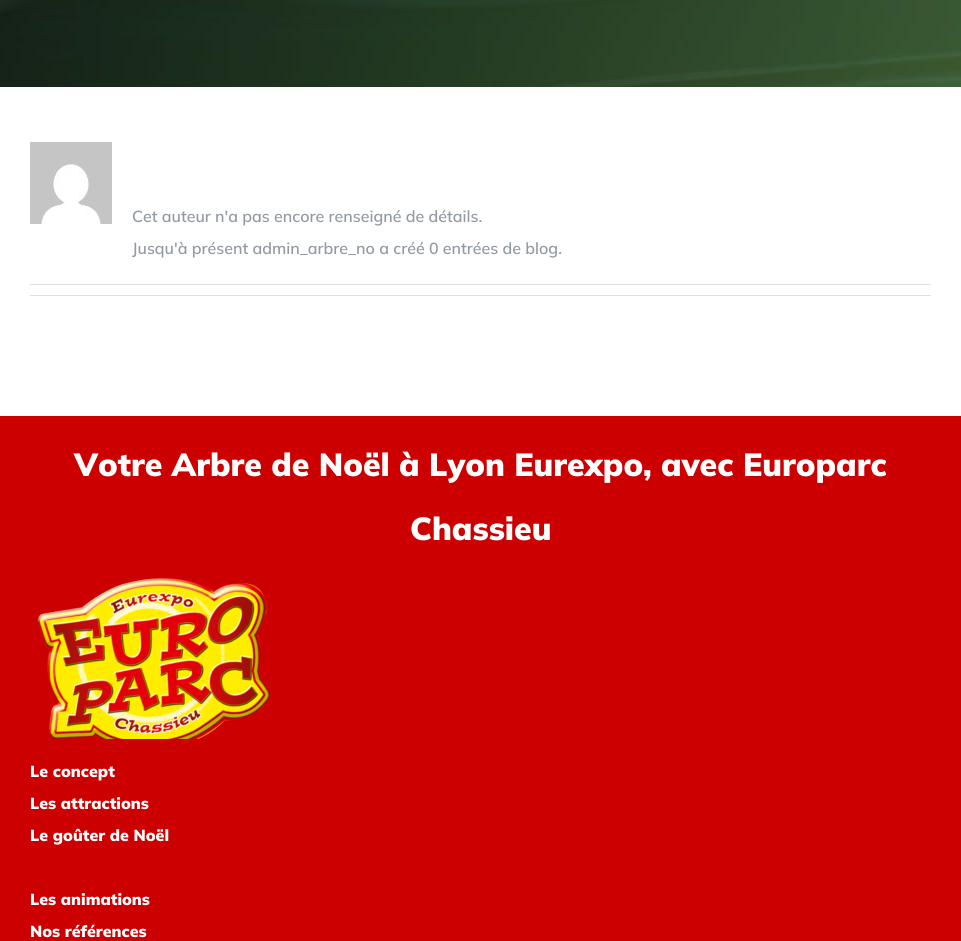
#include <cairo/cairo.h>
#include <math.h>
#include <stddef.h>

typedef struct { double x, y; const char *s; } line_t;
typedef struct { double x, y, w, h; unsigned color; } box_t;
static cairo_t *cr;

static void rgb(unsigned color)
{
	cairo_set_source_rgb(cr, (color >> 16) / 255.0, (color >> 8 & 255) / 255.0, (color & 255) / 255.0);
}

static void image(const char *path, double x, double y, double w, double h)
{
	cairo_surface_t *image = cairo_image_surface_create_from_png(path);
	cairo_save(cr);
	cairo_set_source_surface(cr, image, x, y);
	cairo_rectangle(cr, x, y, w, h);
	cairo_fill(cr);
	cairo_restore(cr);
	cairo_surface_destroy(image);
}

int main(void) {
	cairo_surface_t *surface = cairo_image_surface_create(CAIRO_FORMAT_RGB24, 961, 941);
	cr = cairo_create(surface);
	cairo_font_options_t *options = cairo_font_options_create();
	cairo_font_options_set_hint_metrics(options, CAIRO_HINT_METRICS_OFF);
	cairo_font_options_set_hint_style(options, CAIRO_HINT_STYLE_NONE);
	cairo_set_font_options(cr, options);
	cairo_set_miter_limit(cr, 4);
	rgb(0xffffff);
	cairo_paint(cr);
	image("img/1.png", 0, 0, 961, 87);
	image("img/2.png", 30, 142, 82, 82);
	{
		static const box_t items[] = {
			{30, 284, 901, 1, 0xe0dede},
			{30, 295, 901, 1, 0xe0dede},
			{0, 416, 961, 525, 0xcc0000},
		};
		for (size_t i = 0; i < sizeof items / sizeof *items; i++) {
			rgb(items[i].color);
			cairo_rectangle(cr, items[i].x, items[i].y, items[i].w, items[i].h);
			cairo_fill(cr);
		}
	}
	image("img/3.png", 37, 578, 234, 161);
	cairo_select_font_face(cr, "Mulish SemiBold", CAIRO_FONT_SLANT_NORMAL, CAIRO_FONT_WEIGHT_NORMAL);
	cairo_set_font_size(cr, 16);
	rgb(0x929aa3);
	cairo_move_to(cr, 132, 222);
	cairo_show_text(cr, "Cet auteur n'a pas encore renseigné de détails.");
	cairo_move_to(cr, 132, 254);
	cairo_show_text(cr, "Jusqu'à présent admin_arbre_no a créé 0 entrées de blog.");
	cairo_select_font_face(cr, "Mulish Black", CAIRO_FONT_SLANT_NORMAL, CAIRO_FONT_WEIGHT_NORMAL);
	cairo_set_font_size(cr, 32);
	rgb(0xffffff);
	cairo_move_to(cr, 74, 476);
	cairo_show_text(cr, "Votre Arbre de Noël à Lyon Eurexpo, avec Europarc");
	cairo_move_to(cr, 410, 540);
	cairo_show_text(cr, "Chassieu");
	cairo_set_font_size(cr, 16);
	{
		static const line_t items[] = {
			{30, 777, "Le concept"},
			{30, 809, "Les attractions"},
			{30, 841, "Le goûter de Noël"},
			{30, 905, "Les animations"},
			{30, 937, "Nos références"},
		};
		for (size_t i = 0; i < sizeof items / sizeof *items; i++) {
			cairo_move_to(cr, items[i].x, items[i].y);
			cairo_show_text(cr, items[i].s);
		}
	}
	cairo_surface_write_to_png(surface, "page.png");
	cairo_font_options_destroy(options);
	cairo_destroy(cr);
	cairo_surface_destroy(surface);
	return 0;
}
